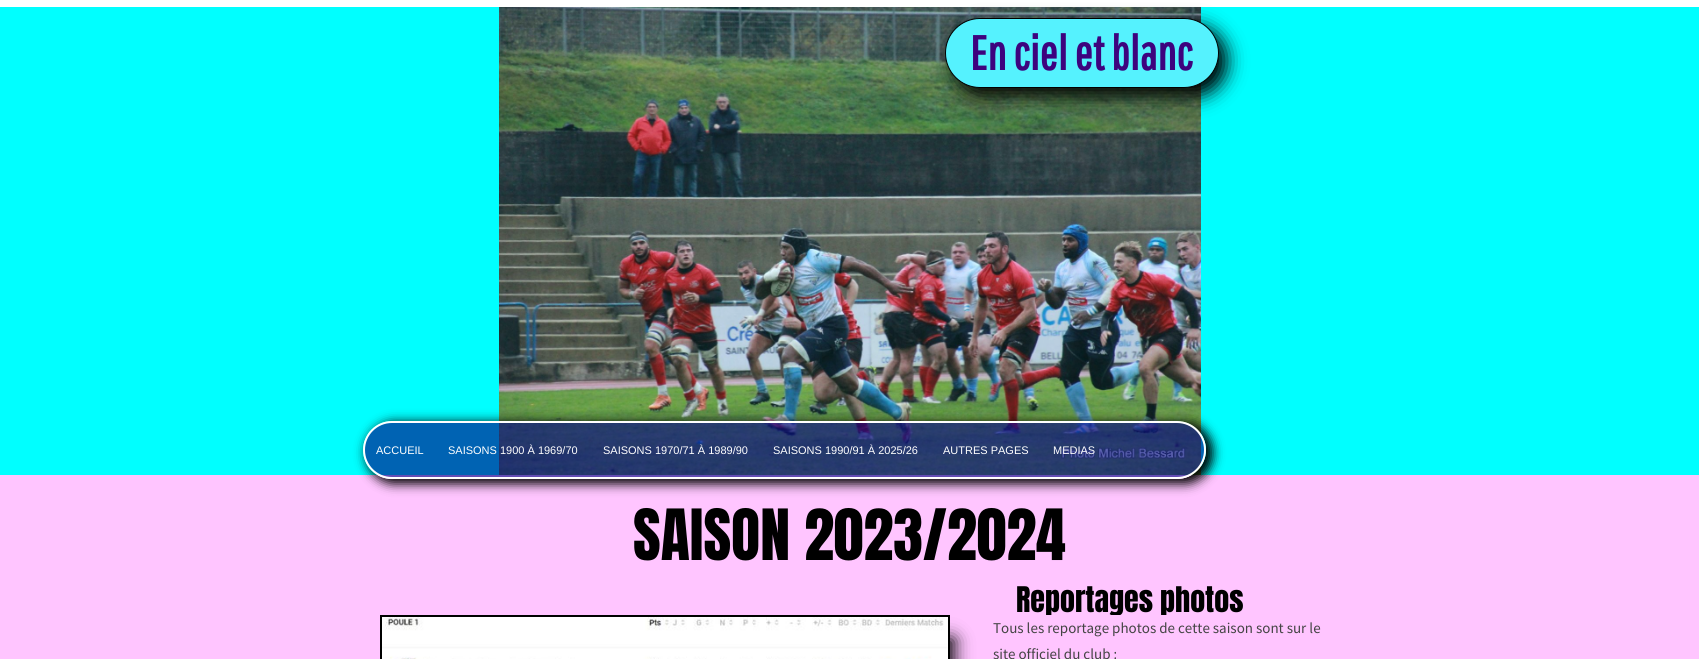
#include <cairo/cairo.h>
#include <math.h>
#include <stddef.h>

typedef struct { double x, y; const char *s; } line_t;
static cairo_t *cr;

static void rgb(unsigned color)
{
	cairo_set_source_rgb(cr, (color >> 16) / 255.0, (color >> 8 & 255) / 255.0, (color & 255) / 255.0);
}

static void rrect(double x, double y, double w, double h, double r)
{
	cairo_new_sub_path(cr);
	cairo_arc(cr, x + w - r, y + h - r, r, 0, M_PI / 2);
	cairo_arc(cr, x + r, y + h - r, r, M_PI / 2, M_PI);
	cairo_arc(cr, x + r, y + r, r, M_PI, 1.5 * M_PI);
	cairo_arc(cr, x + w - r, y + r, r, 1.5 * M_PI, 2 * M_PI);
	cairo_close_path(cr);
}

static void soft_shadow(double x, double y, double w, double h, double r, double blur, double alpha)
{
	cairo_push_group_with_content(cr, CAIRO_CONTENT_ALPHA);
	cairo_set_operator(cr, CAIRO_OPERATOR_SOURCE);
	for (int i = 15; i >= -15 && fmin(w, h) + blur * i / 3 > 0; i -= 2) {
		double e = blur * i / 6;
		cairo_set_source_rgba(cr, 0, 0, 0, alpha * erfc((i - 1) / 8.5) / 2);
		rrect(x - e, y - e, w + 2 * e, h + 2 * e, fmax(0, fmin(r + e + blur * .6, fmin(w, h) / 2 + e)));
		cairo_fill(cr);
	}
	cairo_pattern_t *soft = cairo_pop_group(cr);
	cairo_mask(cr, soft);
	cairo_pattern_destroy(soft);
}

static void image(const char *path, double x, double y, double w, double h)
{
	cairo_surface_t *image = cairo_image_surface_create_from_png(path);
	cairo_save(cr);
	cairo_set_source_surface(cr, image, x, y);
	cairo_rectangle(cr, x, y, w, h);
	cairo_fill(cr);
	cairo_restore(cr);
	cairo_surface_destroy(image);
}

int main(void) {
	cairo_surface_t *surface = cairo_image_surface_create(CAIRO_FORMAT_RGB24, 1699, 659);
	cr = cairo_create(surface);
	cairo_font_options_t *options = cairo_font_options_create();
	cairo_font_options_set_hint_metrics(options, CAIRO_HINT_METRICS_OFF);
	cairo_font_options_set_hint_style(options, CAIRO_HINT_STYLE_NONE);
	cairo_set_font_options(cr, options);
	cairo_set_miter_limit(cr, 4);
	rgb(0xffffff);
	cairo_paint(cr);
	rgb(0x00ffff);
	cairo_rectangle(cr, 0, 7, 1699, 468);
	cairo_fill(cr);
	image("img/1.png", 499, 7, 702, 468);
	rgb(0x000000);
	soft_shadow(953, 26, 274, 70, 35, 9.5, 1);
	rgb(0x55f2fe);
	rrect(945.5, 18.5, 273, 69, 34.5);
	cairo_fill_preserve(cr);
	rgb(0x000000);
	cairo_set_line_width(cr, 1);
	cairo_stroke(cr);
	rgb(0xffc5ff);
	cairo_rectangle(cr, 0, 475, 1699, 184);
	cairo_fill(cr);
	cairo_save(cr);
	cairo_set_fill_rule(cr, CAIRO_FILL_RULE_EVEN_ODD);
	cairo_new_path(cr);
	cairo_move_to(cr, 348, 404);
	cairo_line_to(cr, 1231, 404);
	cairo_line_to(cr, 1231, 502);
	cairo_line_to(cr, 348, 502);
	cairo_close_path(cr);
	cairo_move_to(cr, 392, 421);
	cairo_line_to(cr, 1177, 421);
	cairo_curve_to(cr, 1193, 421, 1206, 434, 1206, 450);
	cairo_curve_to(cr, 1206, 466, 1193, 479, 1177, 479);
	cairo_line_to(cr, 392, 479);
	cairo_curve_to(cr, 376, 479, 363, 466, 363, 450);
	cairo_curve_to(cr, 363, 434, 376, 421, 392, 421);
	cairo_close_path(cr);
	cairo_clip(cr);
	rgb(0x000000);
	soft_shadow(366, 422, 847, 62, 31, 5.5, 1);
	cairo_restore(cr);
	cairo_set_source_rgba(cr, 0.004, 0, 0.518, 0.61);
	rrect(364, 422, 841, 56, 28);
	cairo_fill_preserve(cr);
	rgb(0xffffff);
	cairo_set_line_width(cr, 2);
	cairo_stroke(cr);
	rgb(0x000000);
	soft_shadow(404, 639, 550, 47, 0, 9, 1);
	cairo_rectangle(cr, 381, 616, 568, 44);
	rgb(0x000000);
	cairo_stroke(cr);
	image("img/2.png", 382, 617, 566, 42);
	cairo_select_font_face(cr, "Pathway Gothic One", CAIRO_FONT_SLANT_NORMAL, CAIRO_FONT_WEIGHT_BOLD);
	cairo_set_font_size(cr, 48);
	rgb(0x3d037e);
	cairo_move_to(cr, 970, 70);
	cairo_show_text(cr, "En ciel et blanc");
	cairo_select_font_face(cr, "Liberation Sans", CAIRO_FONT_SLANT_NORMAL, CAIRO_FONT_WEIGHT_NORMAL);
	cairo_set_font_size(cr, 11);
	rgb(0xffffff);
	{
		static const line_t items[] = {
			{376, 454, "ACCUEIL"},
			{448, 454, "SAISONS 1900 À 1969/70"},
			{603, 454, "SAISONS 1970/71 À 1989/90"},
			{773, 454, "SAISONS 1990/91 À 2025/26"},
			{943, 454, "AUTRES PAGES"},
			{1053, 454, "MEDIAS"},
		};
		for (size_t i = 0; i < sizeof items / sizeof *items; i++) {
			cairo_move_to(cr, items[i].x, items[i].y);
			cairo_show_text(cr, items[i].s);
		}
	}
	cairo_select_font_face(cr, "Anton", CAIRO_FONT_SLANT_NORMAL, CAIRO_FONT_WEIGHT_NORMAL);
	cairo_set_font_size(cr, 60);
	rgb(0x000000);
	cairo_move_to(cr, 633, 560);
	cairo_show_text(cr, "SAISON 2023/2024");
	cairo_save(cr);
	cairo_rectangle(cr, 980, 585, 300, 30);
	cairo_clip(cr);
	cairo_set_font_size(cr, 30);
	cairo_move_to(cr, 1016, 612);
	cairo_show_text(cr, "Reportages photos");
	cairo_restore(cr);
	cairo_select_font_face(cr, "Source Sans Pro", CAIRO_FONT_SLANT_NORMAL, CAIRO_FONT_WEIGHT_NORMAL);
	cairo_set_font_size(cr, 15);
	rgb(0x444444);
	cairo_move_to(cr, 993, 633);
	cairo_show_text(cr, "Tous les reportage photos de cette saison sont sur le");
	cairo_move_to(cr, 993, 659);
	cairo_show_text(cr, "site officiel du club :");
	cairo_surface_write_to_png(surface, "page.png");
	cairo_font_options_destroy(options);
	cairo_destroy(cr);
	cairo_surface_destroy(surface);
	return 0;
}
